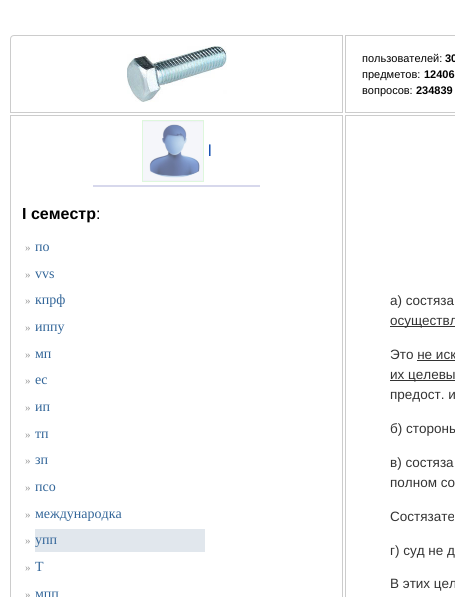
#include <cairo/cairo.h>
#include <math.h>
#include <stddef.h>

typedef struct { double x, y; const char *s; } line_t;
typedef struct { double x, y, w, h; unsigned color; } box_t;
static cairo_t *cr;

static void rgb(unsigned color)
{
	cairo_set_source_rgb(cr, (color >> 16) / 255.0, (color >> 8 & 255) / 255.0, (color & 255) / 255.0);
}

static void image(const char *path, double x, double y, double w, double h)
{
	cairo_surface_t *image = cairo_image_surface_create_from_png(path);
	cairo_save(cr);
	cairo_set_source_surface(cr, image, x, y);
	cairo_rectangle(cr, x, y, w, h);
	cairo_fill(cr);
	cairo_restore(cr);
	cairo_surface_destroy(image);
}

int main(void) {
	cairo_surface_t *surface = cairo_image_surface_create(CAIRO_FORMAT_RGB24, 455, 597);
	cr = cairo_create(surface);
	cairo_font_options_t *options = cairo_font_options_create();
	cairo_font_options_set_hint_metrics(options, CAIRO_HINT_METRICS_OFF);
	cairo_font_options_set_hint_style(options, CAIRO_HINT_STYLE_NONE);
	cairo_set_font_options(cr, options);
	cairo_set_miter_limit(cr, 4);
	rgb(0xffffff);
	cairo_paint(cr);
	cairo_new_path(cr);
	cairo_move_to(cr, 14, 35.5);
	cairo_line_to(cr, 342.5, 35.5);
	cairo_line_to(cr, 342.5, 112.5);
	cairo_line_to(cr, 10.5, 112.5);
	cairo_line_to(cr, 10.5, 39);
	cairo_curve_to(cr, 10.5, 37, 12, 35.5, 14, 35.5);
	cairo_close_path(cr);
	rgb(0xcccccc);
	cairo_set_line_width(cr, 1);
	cairo_stroke(cr);
	image("img/1.png", 127, 46, 100, 56);
	cairo_rectangle(cr, 345.5, 35.5, 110, 77);
	cairo_stroke(cr);
	cairo_rectangle(cr, 10.5, 115.5, 332, 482);
	cairo_stroke(cr);
	cairo_rectangle(cr, 142.5, 120.5, 61, 61);
	rgb(0xdef7dd);
	cairo_stroke(cr);
	image("img/2.png", 143, 121, 60, 60);
	rgb(0xd7d8ec);
	cairo_rectangle(cr, 93, 185, 167, 2);
	cairo_fill(cr);
	rgb(0xe1e7ed);
	cairo_rectangle(cr, 35, 529, 170, 23);
	cairo_fill(cr);
	cairo_rectangle(cr, 345.5, 115.5, 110, 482);
	rgb(0xcccccc);
	cairo_stroke(cr);
	{
		static const box_t items[] = {
			{390, 326, 65, 1, 0x333333},
			{417, 360, 38, 1, 0x333333},
			{390, 380, 65, 1, 0x333333},
		};
		for (size_t i = 0; i < sizeof items / sizeof *items; i++) {
			rgb(items[i].color);
			cairo_rectangle(cr, items[i].x, items[i].y, items[i].w, items[i].h);
			cairo_fill(cr);
		}
	}
	cairo_select_font_face(cr, "Liberation Sans", CAIRO_FONT_SLANT_NORMAL, CAIRO_FONT_WEIGHT_NORMAL);
	cairo_set_font_size(cr, 11);
	rgb(0x000000);
	cairo_move_to(cr, 362, 62);
	cairo_show_text(cr, "пользователей:");
	cairo_select_font_face(cr, "Liberation Sans", CAIRO_FONT_SLANT_NORMAL, CAIRO_FONT_WEIGHT_BOLD);
	cairo_move_to(cr, 445, 62);
	cairo_show_text(cr, "30");
	cairo_select_font_face(cr, "Liberation Sans", CAIRO_FONT_SLANT_NORMAL, CAIRO_FONT_WEIGHT_NORMAL);
	cairo_move_to(cr, 362, 78);
	cairo_show_text(cr, "предметов:");
	cairo_select_font_face(cr, "Liberation Sans", CAIRO_FONT_SLANT_NORMAL, CAIRO_FONT_WEIGHT_BOLD);
	cairo_move_to(cr, 424, 78);
	cairo_show_text(cr, "12406");
	cairo_select_font_face(cr, "Liberation Sans", CAIRO_FONT_SLANT_NORMAL, CAIRO_FONT_WEIGHT_NORMAL);
	cairo_move_to(cr, 362, 94);
	cairo_show_text(cr, "вопросов:");
	cairo_select_font_face(cr, "Liberation Sans", CAIRO_FONT_SLANT_NORMAL, CAIRO_FONT_WEIGHT_BOLD);
	cairo_move_to(cr, 416, 94);
	cairo_show_text(cr, "234839");
	cairo_select_font_face(cr, "Liberation Sans", CAIRO_FONT_SLANT_NORMAL, CAIRO_FONT_WEIGHT_NORMAL);
	cairo_set_font_size(cr, 16);
	rgb(0x0645ad);
	cairo_move_to(cr, 208, 156);
	cairo_show_text(cr, "l");
	cairo_select_font_face(cr, "Liberation Sans", CAIRO_FONT_SLANT_NORMAL, CAIRO_FONT_WEIGHT_BOLD);
	rgb(0x000000);
	cairo_move_to(cr, 22, 219);
	cairo_show_text(cr, "I семестр");
	cairo_select_font_face(cr, "Liberation Sans", CAIRO_FONT_SLANT_NORMAL, CAIRO_FONT_WEIGHT_NORMAL);
	cairo_move_to(cr, 96, 219);
	cairo_show_text(cr, ":");
	cairo_select_font_face(cr, "Liberation Serif", CAIRO_FONT_SLANT_NORMAL, CAIRO_FONT_WEIGHT_NORMAL);
	cairo_set_font_size(cr, 11);
	rgb(0x999999);
	cairo_move_to(cr, 25, 251);
	cairo_show_text(cr, "»");
	cairo_set_font_size(cr, 14);
	rgb(0x336699);
	cairo_move_to(cr, 35, 251);
	cairo_show_text(cr, "по");
	cairo_set_font_size(cr, 11);
	rgb(0x999999);
	cairo_move_to(cr, 25, 278);
	cairo_show_text(cr, "»");
	cairo_set_font_size(cr, 14);
	rgb(0x336699);
	cairo_move_to(cr, 35, 278);
	cairo_show_text(cr, "vvs");
	cairo_set_font_size(cr, 11);
	rgb(0x999999);
	cairo_move_to(cr, 25, 304);
	cairo_show_text(cr, "»");
	cairo_set_font_size(cr, 14);
	rgb(0x336699);
	cairo_move_to(cr, 35, 304);
	cairo_show_text(cr, "кпрф");
	cairo_set_font_size(cr, 11);
	rgb(0x999999);
	cairo_move_to(cr, 25, 331);
	cairo_show_text(cr, "»");
	cairo_set_font_size(cr, 14);
	rgb(0x336699);
	cairo_move_to(cr, 35, 331);
	cairo_show_text(cr, "иппу");
	cairo_set_font_size(cr, 11);
	rgb(0x999999);
	cairo_move_to(cr, 25, 358);
	cairo_show_text(cr, "»");
	cairo_set_font_size(cr, 14);
	rgb(0x336699);
	cairo_move_to(cr, 35, 358);
	cairo_show_text(cr, "мп");
	cairo_set_font_size(cr, 11);
	rgb(0x999999);
	cairo_move_to(cr, 25, 384);
	cairo_show_text(cr, "»");
	cairo_set_font_size(cr, 14);
	rgb(0x336699);
	cairo_move_to(cr, 35, 384);
	cairo_show_text(cr, "ес");
	cairo_set_font_size(cr, 11);
	rgb(0x999999);
	cairo_move_to(cr, 25, 411);
	cairo_show_text(cr, "»");
	cairo_set_font_size(cr, 14);
	rgb(0x336699);
	cairo_move_to(cr, 35, 411);
	cairo_show_text(cr, "ип");
	cairo_set_font_size(cr, 11);
	rgb(0x999999);
	cairo_move_to(cr, 25, 438);
	cairo_show_text(cr, "»");
	cairo_set_font_size(cr, 14);
	rgb(0x336699);
	cairo_move_to(cr, 35, 438);
	cairo_show_text(cr, "тп");
	cairo_set_font_size(cr, 11);
	rgb(0x999999);
	cairo_move_to(cr, 25, 464);
	cairo_show_text(cr, "»");
	cairo_set_font_size(cr, 14);
	rgb(0x336699);
	cairo_move_to(cr, 35, 464);
	cairo_show_text(cr, "зп");
	cairo_set_font_size(cr, 11);
	rgb(0x999999);
	cairo_move_to(cr, 25, 491);
	cairo_show_text(cr, "»");
	cairo_set_font_size(cr, 14);
	rgb(0x336699);
	cairo_move_to(cr, 35, 491);
	cairo_show_text(cr, "псо");
	cairo_set_font_size(cr, 11);
	rgb(0x999999);
	cairo_move_to(cr, 25, 518);
	cairo_show_text(cr, "»");
	cairo_set_font_size(cr, 14);
	rgb(0x336699);
	cairo_move_to(cr, 35, 518);
	cairo_show_text(cr, "международка");
	cairo_set_font_size(cr, 11);
	rgb(0x999999);
	cairo_move_to(cr, 25, 544);
	cairo_show_text(cr, "»");
	cairo_set_font_size(cr, 14);
	rgb(0x336699);
	cairo_move_to(cr, 35, 544);
	cairo_show_text(cr, "упп");
	cairo_set_font_size(cr, 11);
	rgb(0x999999);
	cairo_move_to(cr, 25, 571);
	cairo_show_text(cr, "»");
	cairo_set_font_size(cr, 14);
	rgb(0x336699);
	cairo_move_to(cr, 35, 571);
	cairo_show_text(cr, "Т");
	cairo_set_font_size(cr, 11);
	rgb(0x999999);
	cairo_move_to(cr, 25, 598);
	cairo_show_text(cr, "»");
	cairo_set_font_size(cr, 14);
	rgb(0x336699);
	cairo_move_to(cr, 35, 598);
	cairo_show_text(cr, "мпп");
	cairo_select_font_face(cr, "Liberation Sans", CAIRO_FONT_SLANT_NORMAL, CAIRO_FONT_WEIGHT_NORMAL);
	cairo_set_font_size(cr, 13.5);
	rgb(0x333333);
	{
		static const line_t items[] = {
			{390, 305, "а) состяза"},
			{390, 325, "осуществл"},
			{390, 359, "Это не иск"},
			{390, 379, "их целевы"},
			{390, 399, "предост. и"},
			{390, 433, "б) стороны"},
			{390, 467, "в) состяза"},
			{390, 487, "полном со"},
			{390, 521, "Состязате"},
			{390, 555, "г) суд не д"},
			{390, 588, "В этих цел"},
		};
		for (size_t i = 0; i < sizeof items / sizeof *items; i++) {
			cairo_move_to(cr, items[i].x, items[i].y);
			cairo_show_text(cr, items[i].s);
		}
	}
	cairo_surface_write_to_png(surface, "page.png");
	cairo_font_options_destroy(options);
	cairo_destroy(cr);
	cairo_surface_destroy(surface);
	return 0;
}
